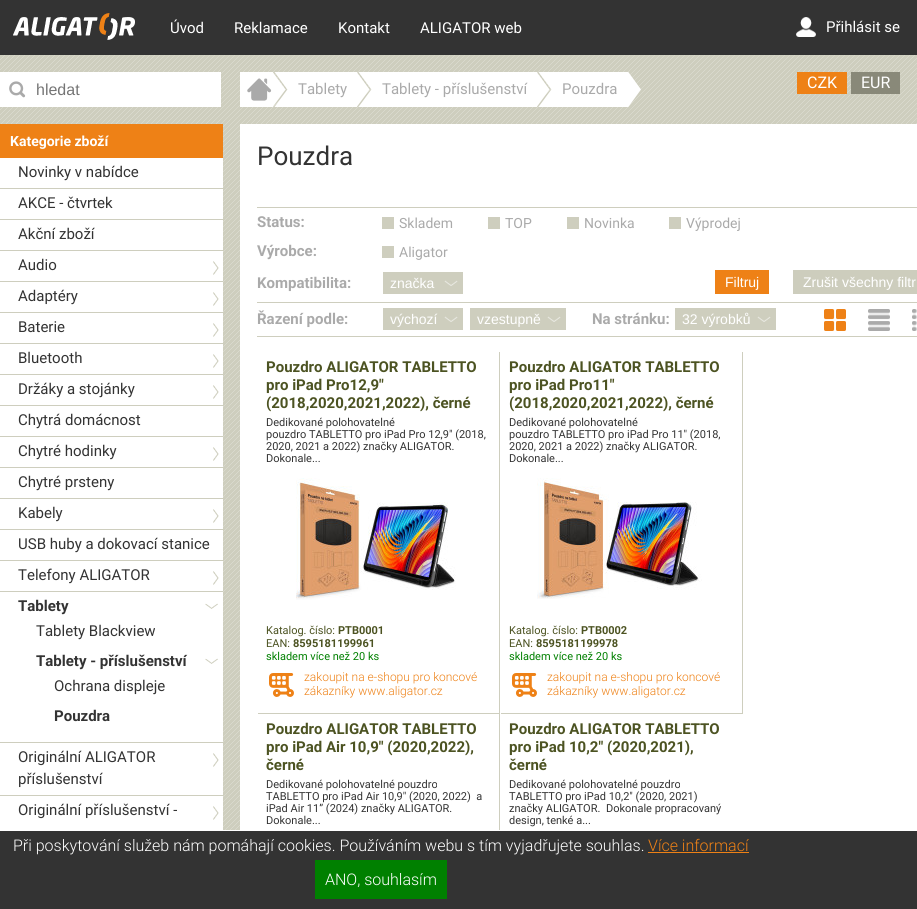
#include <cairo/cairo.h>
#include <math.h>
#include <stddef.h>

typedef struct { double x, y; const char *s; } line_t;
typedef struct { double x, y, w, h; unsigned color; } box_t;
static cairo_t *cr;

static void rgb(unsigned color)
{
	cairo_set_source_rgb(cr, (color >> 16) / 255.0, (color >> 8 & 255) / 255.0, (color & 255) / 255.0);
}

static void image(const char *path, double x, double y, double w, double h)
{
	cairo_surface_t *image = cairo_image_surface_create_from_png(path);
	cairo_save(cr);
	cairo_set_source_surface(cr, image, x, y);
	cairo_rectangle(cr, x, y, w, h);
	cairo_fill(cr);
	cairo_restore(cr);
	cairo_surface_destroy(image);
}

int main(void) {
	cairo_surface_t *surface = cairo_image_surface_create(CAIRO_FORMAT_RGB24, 917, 909);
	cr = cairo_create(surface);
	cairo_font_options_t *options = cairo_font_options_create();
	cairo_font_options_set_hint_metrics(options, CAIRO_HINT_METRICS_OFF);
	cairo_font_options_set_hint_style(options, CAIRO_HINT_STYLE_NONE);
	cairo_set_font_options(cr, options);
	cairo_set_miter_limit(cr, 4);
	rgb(0x333333);
	cairo_paint(cr);
	image("img/1.png", 13, 13, 122, 27);
	image("img/2.png", 796, 17, 20, 20);
	image("img/3.png", 0, 55, 917, 775);
	rgb(0xffffff);
	cairo_rectangle(cr, 0, 72, 221, 35);
	cairo_fill(cr);
	image("img/4.png", 9, 81, 17, 17);
	{
		static const box_t items[] = {
			{0, 158, 223, 672, 0xffffff},
			{0, 124, 223, 34, 0xee8116},
			{0, 188, 223, 1, 0xcecebe},
			{0, 219, 223, 1, 0xcecebe},
			{0, 250, 223, 1, 0xcecebe},
		};
		for (size_t i = 0; i < sizeof items / sizeof *items; i++) {
			rgb(items[i].color);
			cairo_rectangle(cr, items[i].x, items[i].y, items[i].w, items[i].h);
			cairo_fill(cr);
		}
	}
	image("img/5.png", 213, 261, 6, 14);
	cairo_rectangle(cr, 0, 281, 223, 1);
	cairo_fill(cr);
	image("img/5.png", 213, 292, 6, 14);
	cairo_rectangle(cr, 0, 312, 223, 1);
	cairo_fill(cr);
	image("img/5.png", 213, 323, 6, 14);
	cairo_rectangle(cr, 0, 343, 223, 1);
	cairo_fill(cr);
	image("img/5.png", 213, 354, 6, 14);
	cairo_rectangle(cr, 0, 374, 223, 1);
	cairo_fill(cr);
	image("img/5.png", 213, 385, 6, 14);
	cairo_rectangle(cr, 0, 405, 223, 1);
	cairo_fill(cr);
	cairo_rectangle(cr, 0, 436, 223, 1);
	cairo_fill(cr);
	image("img/5.png", 213, 447, 6, 14);
	cairo_rectangle(cr, 0, 467, 223, 1);
	cairo_fill(cr);
	cairo_rectangle(cr, 0, 498, 223, 1);
	cairo_fill(cr);
	image("img/5.png", 213, 509, 6, 14);
	cairo_rectangle(cr, 0, 529, 223, 1);
	cairo_fill(cr);
	cairo_rectangle(cr, 0, 560, 223, 1);
	cairo_fill(cr);
	image("img/5.png", 213, 571, 6, 14);
	cairo_rectangle(cr, 0, 591, 223, 1);
	cairo_fill(cr);
	image("img/6.png", 205, 603, 13, 6);
	cairo_rectangle(cr, 0, 742, 223, 1);
	cairo_fill(cr);
	image("img/6.png", 205, 658, 13, 6);
	image("img/5.png", 213, 753, 6, 14);
	cairo_rectangle(cr, 0, 795, 223, 1);
	cairo_fill(cr);
	image("img/5.png", 213, 806, 6, 14);
	image("img/7.png", 240, 72, 33, 35);
	image("img/8.png", 273, 72, 15, 35);
	rgb(0xffffff);
	cairo_rectangle(cr, 288, 72, 69, 35);
	cairo_fill(cr);
	image("img/9.png", 357, 72, 15, 35);
	cairo_rectangle(cr, 372, 72, 165, 35);
	cairo_fill(cr);
	image("img/9.png", 537, 72, 15, 35);
	cairo_rectangle(cr, 552, 72, 76, 35);
	cairo_fill(cr);
	image("img/10.png", 628, 72, 13, 35);
	{
		static const box_t items[] = {
			{797, 72, 50, 22, 0xee8116},
			{851, 72, 49, 22, 0x898979},
			{240, 124, 677, 706, 0xffffff},
			{257, 207, 660, 1, 0xcecebe},
			{382, 217, 12, 12, 0xcecebe},
			{488, 217, 12, 12, 0xcecebe},
			{567, 217, 12, 12, 0xcecebe},
			{669, 217, 12, 12, 0xcecebe},
			{382, 246, 12, 12, 0xcecebe},
			{383, 272, 80, 22, 0xcecebe},
		};
		for (size_t i = 0; i < sizeof items / sizeof *items; i++) {
			rgb(items[i].color);
			cairo_rectangle(cr, items[i].x, items[i].y, items[i].w, items[i].h);
			cairo_fill(cr);
		}
	}
	image("img/11.png", 444, 280, 14, 6);
	{
		static const box_t items[] = {
			{715, 270, 54, 24, 0xee8116},
			{793, 270, 124, 24, 0xcdcdbd},
			{257, 302, 660, 1, 0xcecebe},
			{257, 336, 660, 1, 0xcecebe},
			{383, 308, 80, 22, 0xcecebe},
		};
		for (size_t i = 0; i < sizeof items / sizeof *items; i++) {
			rgb(items[i].color);
			cairo_rectangle(cr, items[i].x, items[i].y, items[i].w, items[i].h);
			cairo_fill(cr);
		}
	}
	image("img/11.png", 444, 316, 14, 6);
	cairo_rectangle(cr, 470, 308, 96, 22);
	cairo_fill(cr);
	image("img/11.png", 547, 316, 14, 6);
	cairo_rectangle(cr, 675, 308, 101, 22);
	cairo_fill(cr);
	image("img/11.png", 757, 316, 14, 6);
	image("img/12.png", 824, 309, 22, 22);
	image("img/13.png", 868, 309, 22, 22);
	image("img/14.png", 912, 309, 5, 22);
	{
		static const box_t items[] = {
			{499, 352, 1, 478, 0xcecebe},
			{257, 713, 243, 1, 0xcecebe},
			{257, 713, 1, 1, 0xffffff},
		};
		for (size_t i = 0; i < sizeof items / sizeof *items; i++) {
			rgb(items[i].color);
			cairo_rectangle(cr, items[i].x, items[i].y, items[i].w, items[i].h);
			cairo_fill(cr);
		}
	}
	image("img/15.png", 296, 478, 160, 122);
	image("img/16.png", 269, 673, 25, 24);
	{
		static const box_t items[] = {
			{742, 352, 1, 362, 0xcecebe},
			{500, 713, 243, 1, 0xcecebe},
			{500, 713, 1, 1, 0xffffff},
		};
		for (size_t i = 0; i < sizeof items / sizeof *items; i++) {
			rgb(items[i].color);
			cairo_rectangle(cr, items[i].x, items[i].y, items[i].w, items[i].h);
			cairo_fill(cr);
		}
	}
	image("img/17.png", 537, 478, 165, 121);
	image("img/16.png", 512, 673, 25, 24);
	{
		static const box_t items[] = {
			{0, 830, 917, 1, 0xffffff},
			{648, 852, 101, 1, 0xee8116},
			{315, 860, 132, 39, 0x008000},
		};
		for (size_t i = 0; i < sizeof items / sizeof *items; i++) {
			rgb(items[i].color);
			cairo_rectangle(cr, items[i].x, items[i].y, items[i].w, items[i].h);
			cairo_fill(cr);
		}
	}
	cairo_select_font_face(cr, "Roboto", CAIRO_FONT_SLANT_NORMAL, CAIRO_FONT_WEIGHT_NORMAL);
	cairo_set_font_size(cr, 15);
	rgb(0xffffff);
	{
		static const line_t items[] = {
			{170, 33, "Úvod"},
			{234, 33, "Reklamace"},
			{338, 33, "Kontakt"},
			{420, 33, "ALIGATOR web"},
			{826, 32, "Přihlásit se"},
		};
		for (size_t i = 0; i < sizeof items / sizeof *items; i++) {
			cairo_move_to(cr, items[i].x, items[i].y);
			cairo_show_text(cr, items[i].s);
		}
	}
	cairo_select_font_face(cr, "Liberation Sans", CAIRO_FONT_SLANT_NORMAL, CAIRO_FONT_WEIGHT_NORMAL);
	cairo_set_font_size(cr, 16);
	rgb(0x757575);
	cairo_move_to(cr, 36, 95);
	cairo_show_text(cr, "hledat");
	cairo_select_font_face(cr, "Roboto", CAIRO_FONT_SLANT_NORMAL, CAIRO_FONT_WEIGHT_BOLD);
	cairo_set_font_size(cr, 14);
	rgb(0xffffff);
	cairo_move_to(cr, 10, 146);
	cairo_show_text(cr, "Kategorie zboží");
	cairo_select_font_face(cr, "Roboto", CAIRO_FONT_SLANT_NORMAL, CAIRO_FONT_WEIGHT_NORMAL);
	cairo_set_font_size(cr, 15);
	rgb(0x333333);
	{
		static const line_t items[] = {
			{18, 177, "Novinky v nabídce"},
			{18, 208, "AKCE - čtvrtek"},
			{18, 239, "Akční zboží"},
			{18, 270, "Audio"},
			{18, 301, "Adaptéry"},
			{18, 332, "Baterie"},
			{18, 363, "Bluetooth"},
			{18, 394, "Držáky a stojánky"},
			{18, 425, "Chytrá domácnost"},
			{18, 456, "Chytré hodinky"},
			{18, 487, "Chytré prsteny"},
			{18, 518, "Kabely"},
			{18, 549, "USB huby a dokovací stanice"},
			{18, 580, "Telefony ALIGATOR"},
		};
		for (size_t i = 0; i < sizeof items / sizeof *items; i++) {
			cairo_move_to(cr, items[i].x, items[i].y);
			cairo_show_text(cr, items[i].s);
		}
	}
	cairo_select_font_face(cr, "Roboto", CAIRO_FONT_SLANT_NORMAL, CAIRO_FONT_WEIGHT_BOLD);
	cairo_move_to(cr, 18, 611);
	cairo_show_text(cr, "Tablety");
	cairo_select_font_face(cr, "Roboto", CAIRO_FONT_SLANT_NORMAL, CAIRO_FONT_WEIGHT_NORMAL);
	cairo_move_to(cr, 36, 636);
	cairo_show_text(cr, "Tablety Blackview");
	cairo_select_font_face(cr, "Roboto", CAIRO_FONT_SLANT_NORMAL, CAIRO_FONT_WEIGHT_BOLD);
	cairo_move_to(cr, 36, 666);
	cairo_show_text(cr, "Tablety - příslušenství");
	cairo_select_font_face(cr, "Roboto", CAIRO_FONT_SLANT_NORMAL, CAIRO_FONT_WEIGHT_NORMAL);
	cairo_move_to(cr, 54, 691);
	cairo_show_text(cr, "Ochrana displeje");
	cairo_select_font_face(cr, "Roboto", CAIRO_FONT_SLANT_NORMAL, CAIRO_FONT_WEIGHT_BOLD);
	cairo_move_to(cr, 54, 721);
	cairo_show_text(cr, "Pouzdra");
	cairo_select_font_face(cr, "Roboto", CAIRO_FONT_SLANT_NORMAL, CAIRO_FONT_WEIGHT_NORMAL);
	{
		static const line_t items[] = {
			{18, 762, "Originální ALIGATOR"},
			{18, 784, "příslušenství"},
			{18, 815, "Originální příslušenství -"},
		};
		for (size_t i = 0; i < sizeof items / sizeof *items; i++) {
			cairo_move_to(cr, items[i].x, items[i].y);
			cairo_show_text(cr, items[i].s);
		}
	}
	rgb(0xaaaaaa);
	{
		static const line_t items[] = {
			{298, 94, "Tablety"},
			{382, 94, "Tablety - příslušenství"},
			{562, 94, "Pouzdra"},
		};
		for (size_t i = 0; i < sizeof items / sizeof *items; i++) {
			cairo_move_to(cr, items[i].x, items[i].y);
			cairo_show_text(cr, items[i].s);
		}
	}
	cairo_set_font_size(cr, 16);
	rgb(0xffffff);
	cairo_move_to(cr, 807, 88);
	cairo_show_text(cr, "CZK");
	cairo_move_to(cr, 861, 88);
	cairo_show_text(cr, "EUR");
	cairo_set_font_size(cr, 26);
	rgb(0x333333);
	cairo_move_to(cr, 257, 165);
	cairo_show_text(cr, "Pouzdra");
	cairo_select_font_face(cr, "Roboto", CAIRO_FONT_SLANT_NORMAL, CAIRO_FONT_WEIGHT_BOLD);
	cairo_set_font_size(cr, 15);
	rgb(0xaaaaaa);
	cairo_move_to(cr, 257, 227);
	cairo_show_text(cr, "Status:");
	cairo_select_font_face(cr, "Roboto", CAIRO_FONT_SLANT_NORMAL, CAIRO_FONT_WEIGHT_NORMAL);
	cairo_set_font_size(cr, 14);
	{
		static const line_t items[] = {
			{399, 228, "Skladem"},
			{505, 228, "TOP"},
			{584, 228, "Novinka"},
			{686, 228, "Výprodej"},
		};
		for (size_t i = 0; i < sizeof items / sizeof *items; i++) {
			cairo_move_to(cr, items[i].x, items[i].y);
			cairo_show_text(cr, items[i].s);
		}
	}
	cairo_select_font_face(cr, "Roboto", CAIRO_FONT_SLANT_NORMAL, CAIRO_FONT_WEIGHT_BOLD);
	cairo_set_font_size(cr, 15);
	cairo_move_to(cr, 257, 256);
	cairo_show_text(cr, "Výrobce:");
	cairo_select_font_face(cr, "Roboto", CAIRO_FONT_SLANT_NORMAL, CAIRO_FONT_WEIGHT_NORMAL);
	cairo_set_font_size(cr, 14);
	cairo_move_to(cr, 399, 257);
	cairo_show_text(cr, "Aligator");
	cairo_select_font_face(cr, "Roboto", CAIRO_FONT_SLANT_NORMAL, CAIRO_FONT_WEIGHT_BOLD);
	cairo_set_font_size(cr, 15);
	cairo_move_to(cr, 257, 288);
	cairo_show_text(cr, "Kompatibilita:");
	cairo_select_font_face(cr, "Liberation Sans", CAIRO_FONT_SLANT_NORMAL, CAIRO_FONT_WEIGHT_NORMAL);
	cairo_set_font_size(cr, 14);
	rgb(0xffffff);
	{
		static const line_t items[] = {
			{390, 288, "značka"},
			{725, 287, "Filtruj"},
			{803, 287, "Zrušit všechny filtr"},
		};
		for (size_t i = 0; i < sizeof items / sizeof *items; i++) {
			cairo_move_to(cr, items[i].x, items[i].y);
			cairo_show_text(cr, items[i].s);
		}
	}
	cairo_select_font_face(cr, "Roboto", CAIRO_FONT_SLANT_NORMAL, CAIRO_FONT_WEIGHT_BOLD);
	cairo_set_font_size(cr, 15);
	rgb(0xaaaaaa);
	cairo_move_to(cr, 257, 324);
	cairo_show_text(cr, "Řazení podle:");
	cairo_select_font_face(cr, "Liberation Sans", CAIRO_FONT_SLANT_NORMAL, CAIRO_FONT_WEIGHT_NORMAL);
	cairo_set_font_size(cr, 14);
	rgb(0xffffff);
	cairo_move_to(cr, 390, 324);
	cairo_show_text(cr, "výchozí");
	cairo_move_to(cr, 477, 324);
	cairo_show_text(cr, "vzestupně");
	cairo_select_font_face(cr, "Roboto", CAIRO_FONT_SLANT_NORMAL, CAIRO_FONT_WEIGHT_BOLD);
	cairo_set_font_size(cr, 15);
	rgb(0xaaaaaa);
	cairo_move_to(cr, 592, 324);
	cairo_show_text(cr, "Na stránku:");
	cairo_select_font_face(cr, "Liberation Sans", CAIRO_FONT_SLANT_NORMAL, CAIRO_FONT_WEIGHT_NORMAL);
	cairo_set_font_size(cr, 14);
	rgb(0xffffff);
	cairo_move_to(cr, 682, 324);
	cairo_show_text(cr, "32 výrobků");
	cairo_select_font_face(cr, "Roboto", CAIRO_FONT_SLANT_NORMAL, CAIRO_FONT_WEIGHT_BOLD);
	cairo_set_font_size(cr, 15);
	rgb(0x4c5322);
	{
		static const line_t items[] = {
			{266, 372, "Pouzdro ALIGATOR TABLETTO"},
			{266, 390, "pro iPad Pro12,9\""},
			{266, 408, "(2018,2020,2021,2022), černé"},
		};
		for (size_t i = 0; i < sizeof items / sizeof *items; i++) {
			cairo_move_to(cr, items[i].x, items[i].y);
			cairo_show_text(cr, items[i].s);
		}
	}
	cairo_select_font_face(cr, "Roboto", CAIRO_FONT_SLANT_NORMAL, CAIRO_FONT_WEIGHT_NORMAL);
	cairo_set_font_size(cr, 11);
	rgb(0x333333);
	{
		static const line_t items[] = {
			{266, 426, "Dedikované polohovatelné"},
			{266, 438, "pouzdro TABLETTO pro iPad Pro 12,9\" (2018,"},
			{266, 450, "2020, 2021 a 2022) značky ALIGATOR."},
			{266, 462, "Dokonale..."},
		};
		for (size_t i = 0; i < sizeof items / sizeof *items; i++) {
			cairo_move_to(cr, items[i].x, items[i].y);
			cairo_show_text(cr, items[i].s);
		}
	}
	rgb(0x4c5322);
	cairo_move_to(cr, 266, 634);
	cairo_show_text(cr, "Katalog. číslo:");
	cairo_select_font_face(cr, "Roboto", CAIRO_FONT_SLANT_NORMAL, CAIRO_FONT_WEIGHT_BOLD);
	cairo_move_to(cr, 338, 634);
	cairo_show_text(cr, "PTB0001");
	cairo_select_font_face(cr, "Roboto", CAIRO_FONT_SLANT_NORMAL, CAIRO_FONT_WEIGHT_NORMAL);
	cairo_move_to(cr, 266, 647);
	cairo_show_text(cr, "EAN:");
	cairo_select_font_face(cr, "Roboto", CAIRO_FONT_SLANT_NORMAL, CAIRO_FONT_WEIGHT_BOLD);
	cairo_move_to(cr, 293, 647);
	cairo_show_text(cr, "8595181199961");
	cairo_select_font_face(cr, "Roboto", CAIRO_FONT_SLANT_NORMAL, CAIRO_FONT_WEIGHT_NORMAL);
	rgb(0x008000);
	cairo_move_to(cr, 266, 660);
	cairo_show_text(cr, "skladem více než 20 ks");
	cairo_select_font_face(cr, "Roboto Light", CAIRO_FONT_SLANT_NORMAL, CAIRO_FONT_WEIGHT_NORMAL);
	cairo_set_font_size(cr, 12);
	rgb(0xee8116);
	cairo_move_to(cr, 304, 681);
	cairo_show_text(cr, "zakoupit na e-shopu pro koncové");
	cairo_move_to(cr, 304, 695);
	cairo_show_text(cr, "zákazníky www.aligator.cz");
	cairo_select_font_face(cr, "Roboto", CAIRO_FONT_SLANT_NORMAL, CAIRO_FONT_WEIGHT_BOLD);
	cairo_set_font_size(cr, 15);
	rgb(0x4c5322);
	{
		static const line_t items[] = {
			{509, 372, "Pouzdro ALIGATOR TABLETTO"},
			{509, 390, "pro iPad Pro11\""},
			{509, 408, "(2018,2020,2021,2022), černé"},
		};
		for (size_t i = 0; i < sizeof items / sizeof *items; i++) {
			cairo_move_to(cr, items[i].x, items[i].y);
			cairo_show_text(cr, items[i].s);
		}
	}
	cairo_select_font_face(cr, "Roboto", CAIRO_FONT_SLANT_NORMAL, CAIRO_FONT_WEIGHT_NORMAL);
	cairo_set_font_size(cr, 11);
	rgb(0x333333);
	{
		static const line_t items[] = {
			{509, 426, "Dedikované polohovatelné"},
			{509, 438, "pouzdro TABLETTO pro iPad Pro 11\" (2018,"},
			{509, 450, "2020, 2021 a 2022) značky ALIGATOR."},
			{509, 462, "Dokonale..."},
		};
		for (size_t i = 0; i < sizeof items / sizeof *items; i++) {
			cairo_move_to(cr, items[i].x, items[i].y);
			cairo_show_text(cr, items[i].s);
		}
	}
	rgb(0x4c5322);
	cairo_move_to(cr, 509, 634);
	cairo_show_text(cr, "Katalog. číslo:");
	cairo_select_font_face(cr, "Roboto", CAIRO_FONT_SLANT_NORMAL, CAIRO_FONT_WEIGHT_BOLD);
	cairo_move_to(cr, 581, 634);
	cairo_show_text(cr, "PTB0002");
	cairo_select_font_face(cr, "Roboto", CAIRO_FONT_SLANT_NORMAL, CAIRO_FONT_WEIGHT_NORMAL);
	cairo_move_to(cr, 509, 647);
	cairo_show_text(cr, "EAN:");
	cairo_select_font_face(cr, "Roboto", CAIRO_FONT_SLANT_NORMAL, CAIRO_FONT_WEIGHT_BOLD);
	cairo_move_to(cr, 536, 647);
	cairo_show_text(cr, "8595181199978");
	cairo_select_font_face(cr, "Roboto", CAIRO_FONT_SLANT_NORMAL, CAIRO_FONT_WEIGHT_NORMAL);
	rgb(0x008000);
	cairo_move_to(cr, 509, 660);
	cairo_show_text(cr, "skladem více než 20 ks");
	cairo_select_font_face(cr, "Roboto Light", CAIRO_FONT_SLANT_NORMAL, CAIRO_FONT_WEIGHT_NORMAL);
	cairo_set_font_size(cr, 12);
	rgb(0xee8116);
	cairo_move_to(cr, 547, 681);
	cairo_show_text(cr, "zakoupit na e-shopu pro koncové");
	cairo_move_to(cr, 547, 695);
	cairo_show_text(cr, "zákazníky www.aligator.cz");
	cairo_select_font_face(cr, "Roboto", CAIRO_FONT_SLANT_NORMAL, CAIRO_FONT_WEIGHT_BOLD);
	cairo_set_font_size(cr, 15);
	rgb(0x4c5322);
	{
		static const line_t items[] = {
			{266, 734, "Pouzdro ALIGATOR TABLETTO"},
			{266, 752, "pro iPad Air 10,9\" (2020,2022),"},
			{266, 770, "černé"},
		};
		for (size_t i = 0; i < sizeof items / sizeof *items; i++) {
			cairo_move_to(cr, items[i].x, items[i].y);
			cairo_show_text(cr, items[i].s);
		}
	}
	cairo_select_font_face(cr, "Roboto", CAIRO_FONT_SLANT_NORMAL, CAIRO_FONT_WEIGHT_NORMAL);
	cairo_set_font_size(cr, 11);
	rgb(0x333333);
	{
		static const line_t items[] = {
			{266, 788, "Dedikované polohovatelné pouzdro"},
			{266, 800, "TABLETTO pro iPad Air 10,9\" (2020, 2022)  a"},
			{266, 812, "iPad Air 11” (2024) značky ALIGATOR."},
			{266, 824, "Dokonale..."},
		};
		for (size_t i = 0; i < sizeof items / sizeof *items; i++) {
			cairo_move_to(cr, items[i].x, items[i].y);
			cairo_show_text(cr, items[i].s);
		}
	}
	cairo_select_font_face(cr, "Roboto", CAIRO_FONT_SLANT_NORMAL, CAIRO_FONT_WEIGHT_BOLD);
	cairo_set_font_size(cr, 15);
	rgb(0x4c5322);
	{
		static const line_t items[] = {
			{509, 734, "Pouzdro ALIGATOR TABLETTO"},
			{509, 752, "pro iPad 10,2\" (2020,2021),"},
			{509, 770, "černé"},
		};
		for (size_t i = 0; i < sizeof items / sizeof *items; i++) {
			cairo_move_to(cr, items[i].x, items[i].y);
			cairo_show_text(cr, items[i].s);
		}
	}
	cairo_select_font_face(cr, "Roboto", CAIRO_FONT_SLANT_NORMAL, CAIRO_FONT_WEIGHT_NORMAL);
	cairo_set_font_size(cr, 11);
	rgb(0x333333);
	{
		static const line_t items[] = {
			{509, 788, "Dedikované polohovatelné pouzdro"},
			{509, 800, "TABLETTO pro iPad 10,2\" (2020, 2021)"},
			{509, 812, "značky ALIGATOR."},
			{606, 812, "Dokonale propracovaný"},
			{509, 824, "design, tenké a..."},
		};
		for (size_t i = 0; i < sizeof items / sizeof *items; i++) {
			cairo_move_to(cr, items[i].x, items[i].y);
			cairo_show_text(cr, items[i].s);
		}
	}
	cairo_select_font_face(cr, "Roboto Light", CAIRO_FONT_SLANT_NORMAL, CAIRO_FONT_WEIGHT_NORMAL);
	cairo_set_font_size(cr, 16);
	rgb(0xffffff);
	cairo_move_to(cr, 13, 851);
	cairo_show_text(cr, "Při poskytování služeb nám pomáhají cookies. Používáním webu s tím vyjadřujete souhlas.");
	rgb(0xee8116);
	cairo_move_to(cr, 648, 851);
	cairo_show_text(cr, "Více informací");
	rgb(0xffffff);
	cairo_move_to(cr, 325, 885);
	cairo_show_text(cr, "ANO, souhlasím");
	cairo_surface_write_to_png(surface, "page.png");
	cairo_font_options_destroy(options);
	cairo_destroy(cr);
	cairo_surface_destroy(surface);
	return 0;
}
